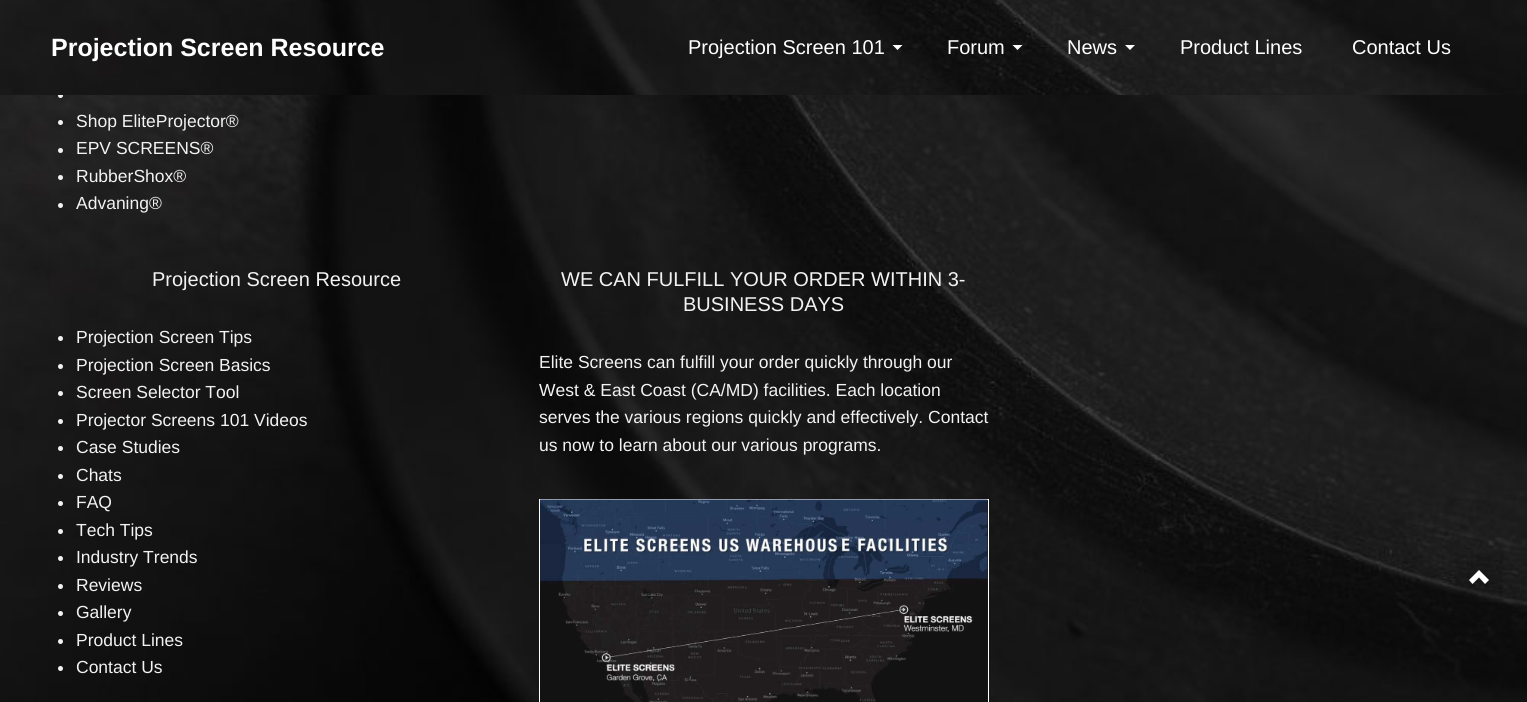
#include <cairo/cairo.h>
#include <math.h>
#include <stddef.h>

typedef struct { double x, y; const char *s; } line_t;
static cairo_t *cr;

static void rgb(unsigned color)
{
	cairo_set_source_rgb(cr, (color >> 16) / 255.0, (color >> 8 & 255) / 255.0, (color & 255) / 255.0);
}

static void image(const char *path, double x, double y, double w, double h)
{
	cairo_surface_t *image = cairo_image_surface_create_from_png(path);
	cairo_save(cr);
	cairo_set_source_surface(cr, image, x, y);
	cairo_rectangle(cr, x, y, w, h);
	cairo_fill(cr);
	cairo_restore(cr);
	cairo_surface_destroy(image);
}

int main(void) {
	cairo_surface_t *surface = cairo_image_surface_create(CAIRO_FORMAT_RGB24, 1527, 702);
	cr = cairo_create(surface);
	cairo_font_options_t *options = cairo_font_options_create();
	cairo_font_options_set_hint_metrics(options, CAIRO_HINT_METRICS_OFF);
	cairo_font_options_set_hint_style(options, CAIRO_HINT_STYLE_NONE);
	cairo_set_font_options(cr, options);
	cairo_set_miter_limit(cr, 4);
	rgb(0xffffff);
	cairo_paint(cr);
	image("img/2.png", 0, 95, 1527, 607);
	rgb(0xf2f2f2);
	cairo_arc(cr, 60.5, 95.5, 2.5, 0, 2 * M_PI);
	cairo_fill(cr);
	image("img/1.png", 0, 0, 1527, 95);
	rgb(0xffffff);
	cairo_new_path(cr);
	cairo_move_to(cr, 892.5, 45);
	cairo_line_to(cr, 897.5, 50);
	cairo_line_to(cr, 902.5, 45);
	cairo_close_path(cr);
	cairo_fill(cr);
	cairo_new_path(cr);
	cairo_move_to(cr, 1012.5, 45);
	cairo_line_to(cr, 1017.5, 50);
	cairo_line_to(cr, 1022.5, 45);
	cairo_close_path(cr);
	cairo_fill(cr);
	cairo_new_path(cr);
	cairo_move_to(cr, 1125, 45);
	cairo_line_to(cr, 1130, 50);
	cairo_line_to(cr, 1135, 45);
	cairo_close_path(cr);
	cairo_fill(cr);
	rgb(0xf2f2f2);
	cairo_arc(cr, 60.5, 122.5, 2.5, 0, 2 * M_PI);
	cairo_fill(cr);
	cairo_arc(cr, 60.5, 150.5, 2.5, 0, 2 * M_PI);
	cairo_fill(cr);
	cairo_arc(cr, 60.5, 177.5, 2.5, 0, 2 * M_PI);
	cairo_fill(cr);
	cairo_arc(cr, 60.5, 205.5, 2.5, 0, 2 * M_PI);
	cairo_fill(cr);
	cairo_arc(cr, 60.5, 338.5, 2.5, 0, 2 * M_PI);
	cairo_fill(cr);
	cairo_arc(cr, 60.5, 366.5, 2.5, 0, 2 * M_PI);
	cairo_fill(cr);
	cairo_arc(cr, 60.5, 393.5, 2.5, 0, 2 * M_PI);
	cairo_fill(cr);
	cairo_arc(cr, 60.5, 421.5, 2.5, 0, 2 * M_PI);
	cairo_fill(cr);
	cairo_arc(cr, 60.5, 448.5, 2.5, 0, 2 * M_PI);
	cairo_fill(cr);
	cairo_arc(cr, 60.5, 476.5, 2.5, 0, 2 * M_PI);
	cairo_fill(cr);
	cairo_arc(cr, 60.5, 503.5, 2.5, 0, 2 * M_PI);
	cairo_fill(cr);
	cairo_arc(cr, 60.5, 531.5, 2.5, 0, 2 * M_PI);
	cairo_fill(cr);
	cairo_arc(cr, 60.5, 558.5, 2.5, 0, 2 * M_PI);
	cairo_fill(cr);
	cairo_arc(cr, 60.5, 586.5, 2.5, 0, 2 * M_PI);
	cairo_fill(cr);
	cairo_arc(cr, 60.5, 613.5, 2.5, 0, 2 * M_PI);
	cairo_fill(cr);
	cairo_arc(cr, 60.5, 641.5, 2.5, 0, 2 * M_PI);
	cairo_fill(cr);
	cairo_arc(cr, 60.5, 668.5, 2.5, 0, 2 * M_PI);
	cairo_fill(cr);
	cairo_rectangle(cr, 539.5, 499.5, 449, 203);
	rgb(0xffffff);
	cairo_set_line_width(cr, 1);
	cairo_stroke(cr);
	image("img/3.png", 540, 499, 448, 203);
	cairo_set_source_rgba(cr, 0, 0, 0, 0.1);
	cairo_rectangle(cr, 1455, 553, 48, 47);
	cairo_fill(cr);
	rgb(0xffffff);
	cairo_new_path(cr);
	cairo_move_to(cr, 1469, 580);
	cairo_line_to(cr, 1472.5, 584);
	cairo_line_to(cr, 1479, 577.5);
	cairo_line_to(cr, 1485, 584);
	cairo_line_to(cr, 1489, 580);
	cairo_line_to(cr, 1479, 570);
	cairo_close_path(cr);
	cairo_fill(cr);
	cairo_select_font_face(cr, "Liberation Sans", CAIRO_FONT_SLANT_NORMAL, CAIRO_FONT_WEIGHT_BOLD);
	cairo_set_font_size(cr, 25);
	cairo_move_to(cr, 51, 56);
	cairo_show_text(cr, "Projection Screen Resource");
	cairo_select_font_face(cr, "Liberation Sans", CAIRO_FONT_SLANT_NORMAL, CAIRO_FONT_WEIGHT_NORMAL);
	cairo_set_font_size(cr, 20);
	{
		static const line_t items[] = {
			{688, 54, "Projection Screen 101"},
			{947, 54, "Forum"},
			{1067, 54, "News"},
			{1180, 54, "Product Lines"},
			{1352, 54, "Contact Us"},
		};
		for (size_t i = 0; i < sizeof items / sizeof *items; i++) {
			cairo_move_to(cr, items[i].x, items[i].y);
			cairo_show_text(cr, items[i].s);
		}
	}
	cairo_set_font_size(cr, 17.5);
	rgb(0xf2f2f2);
	{
		static const line_t items[] = {
			{76, 127, "Shop EliteProjector®"},
			{76, 154, "EPV SCREENS®"},
			{76, 182, "RubberShox®"},
			{76, 209, "Advaning®"},
		};
		for (size_t i = 0; i < sizeof items / sizeof *items; i++) {
			cairo_move_to(cr, items[i].x, items[i].y);
			cairo_show_text(cr, items[i].s);
		}
	}
	cairo_set_font_size(cr, 20);
	cairo_move_to(cr, 152, 286);
	cairo_show_text(cr, "Projection Screen Resource");
	cairo_set_font_size(cr, 17.5);
	{
		static const line_t items[] = {
			{76, 343, "Projection Screen Tips"},
			{76, 371, "Projection Screen Basics"},
			{76, 398, "Screen Selector Tool"},
			{76, 426, "Projector Screens 101 Videos"},
			{76, 453, "Case Studies"},
			{76, 481, "Chats"},
			{76, 508, "FAQ"},
			{76, 536, "Tech Tips"},
			{76, 563, "Industry Trends"},
			{76, 591, "Reviews"},
			{76, 618, "Gallery"},
			{76, 646, "Product Lines"},
			{76, 673, "Contact Us"},
		};
		for (size_t i = 0; i < sizeof items / sizeof *items; i++) {
			cairo_move_to(cr, items[i].x, items[i].y);
			cairo_show_text(cr, items[i].s);
		}
	}
	cairo_set_font_size(cr, 20);
	cairo_move_to(cr, 561, 286);
	cairo_show_text(cr, "WE CAN FULFILL YOUR ORDER WITHIN 3-");
	cairo_move_to(cr, 683, 311);
	cairo_show_text(cr, "BUSINESS DAYS");
	cairo_set_font_size(cr, 17.5);
	{
		static const line_t items[] = {
			{539, 368, "Elite Screens can fulfill your order quickly through our"},
			{539, 396, "West & East Coast (CA/MD) facilities. Each location"},
			{539, 423, "serves the various regions quickly and effectively. Contact"},
			{539, 451, "us now to learn about our various programs."},
		};
		for (size_t i = 0; i < sizeof items / sizeof *items; i++) {
			cairo_move_to(cr, items[i].x, items[i].y);
			cairo_show_text(cr, items[i].s);
		}
	}
	cairo_surface_write_to_png(surface, "page.png");
	cairo_font_options_destroy(options);
	cairo_destroy(cr);
	cairo_surface_destroy(surface);
	return 0;
}
